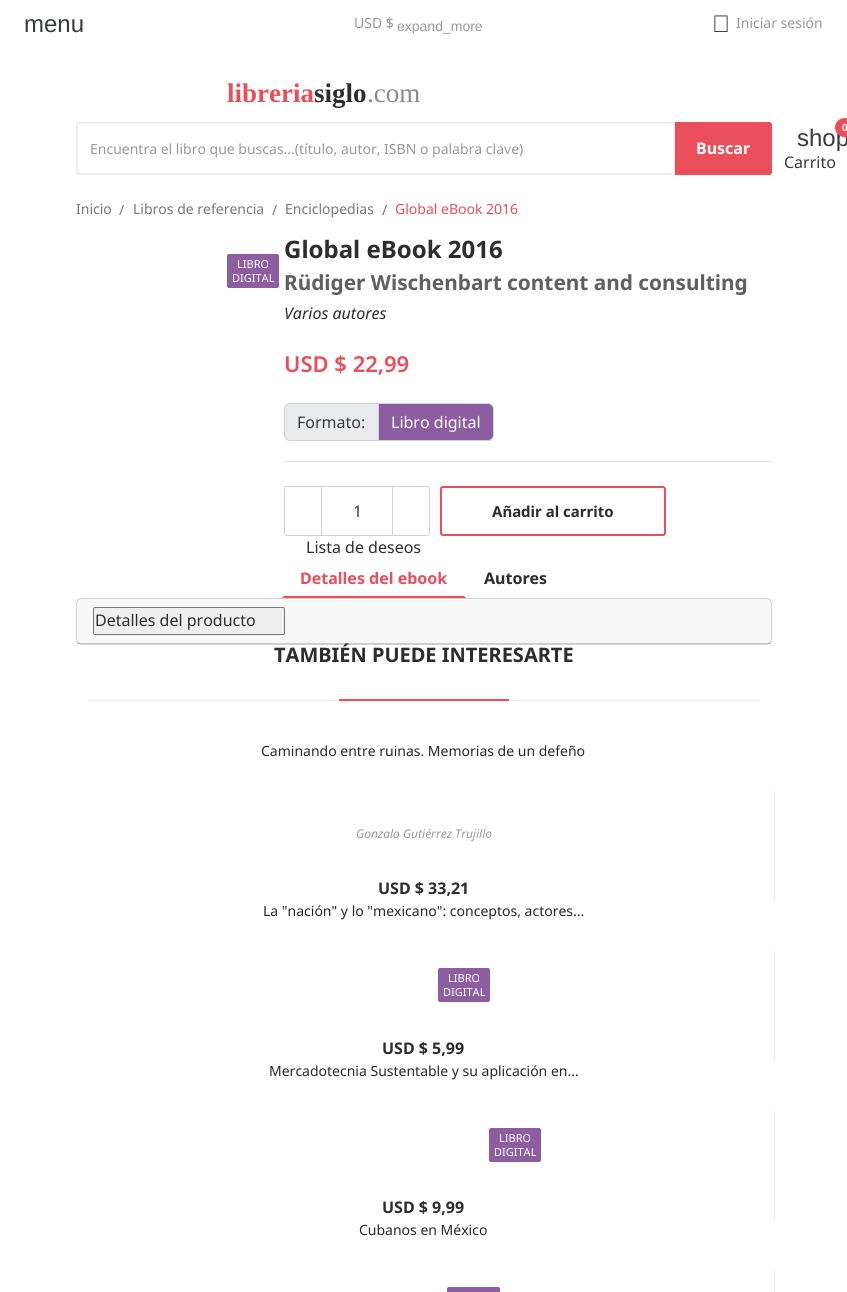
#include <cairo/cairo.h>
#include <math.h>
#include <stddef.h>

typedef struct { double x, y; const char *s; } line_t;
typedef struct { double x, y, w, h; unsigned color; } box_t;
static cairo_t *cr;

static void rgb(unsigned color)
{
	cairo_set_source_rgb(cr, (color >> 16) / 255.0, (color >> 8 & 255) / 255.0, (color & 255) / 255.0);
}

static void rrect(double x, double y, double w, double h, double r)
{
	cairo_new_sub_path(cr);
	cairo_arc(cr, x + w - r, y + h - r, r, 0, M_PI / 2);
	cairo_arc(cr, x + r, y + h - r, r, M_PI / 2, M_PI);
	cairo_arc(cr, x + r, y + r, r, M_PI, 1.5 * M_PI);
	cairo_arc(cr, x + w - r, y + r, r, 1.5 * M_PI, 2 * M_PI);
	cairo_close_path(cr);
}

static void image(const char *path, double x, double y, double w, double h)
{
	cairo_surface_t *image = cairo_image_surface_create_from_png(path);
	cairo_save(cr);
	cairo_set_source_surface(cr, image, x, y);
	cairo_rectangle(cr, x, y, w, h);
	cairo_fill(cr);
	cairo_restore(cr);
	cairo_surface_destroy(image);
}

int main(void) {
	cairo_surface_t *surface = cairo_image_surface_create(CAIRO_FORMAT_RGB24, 847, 1292);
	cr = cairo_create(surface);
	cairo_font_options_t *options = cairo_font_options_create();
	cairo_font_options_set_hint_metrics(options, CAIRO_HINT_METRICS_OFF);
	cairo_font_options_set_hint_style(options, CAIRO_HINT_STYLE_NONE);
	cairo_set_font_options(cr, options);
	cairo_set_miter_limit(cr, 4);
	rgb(0xffffff);
	cairo_paint(cr);
	image("img/1.png", 714, 15, 14, 17);
	cairo_new_path(cr);
	cairo_move_to(cr, 79, 123);
	cairo_line_to(cr, 675, 123);
	cairo_line_to(cr, 675, 174);
	cairo_line_to(cr, 79, 174);
	cairo_curve_to(cr, 78, 174, 77, 173, 77, 172);
	cairo_line_to(cr, 77, 125);
	cairo_curve_to(cr, 77, 124, 78, 123, 79, 123);
	cairo_close_path(cr);
	rgb(0xeeeeee);
	cairo_stroke(cr);
	rgb(0xea4e5a);
	cairo_new_path(cr);
	cairo_move_to(cr, 675.5, 122.5);
	cairo_line_to(cr, 769, 122.5);
	cairo_curve_to(cr, 770.5, 122.5, 771.5, 123.5, 771.5, 125);
	cairo_line_to(cr, 771.5, 172);
	cairo_curve_to(cr, 771.5, 173.5, 770.5, 174.5, 769, 174.5);
	cairo_line_to(cr, 675.5, 174.5);
	cairo_close_path(cr);
	cairo_fill_preserve(cr);
	cairo_set_line_width(cr, 1);
	cairo_stroke(cr);
	rgb(0x8c5da0);
	rrect(227, 254, 52, 34, 2);
	cairo_fill(cr);
	rgb(0xeaebec);
	cairo_new_path(cr);
	cairo_move_to(cr, 290, 403.5);
	cairo_line_to(cr, 378.5, 403.5);
	cairo_line_to(cr, 378.5, 440.5);
	cairo_line_to(cr, 290, 440.5);
	cairo_curve_to(cr, 287, 440.5, 284.5, 438, 284.5, 435);
	cairo_line_to(cr, 284.5, 409);
	cairo_curve_to(cr, 284.5, 406, 287, 403.5, 290, 403.5);
	cairo_close_path(cr);
	cairo_fill_preserve(cr);
	rgb(0xced4da);
	cairo_stroke(cr);
	rgb(0x8c5da0);
	cairo_new_path(cr);
	cairo_move_to(cr, 378.5, 403.5);
	cairo_line_to(cr, 488, 403.5);
	cairo_curve_to(cr, 491, 403.5, 493.5, 406, 493.5, 409);
	cairo_line_to(cr, 493.5, 435);
	cairo_curve_to(cr, 493.5, 438, 491, 440.5, 488, 440.5);
	cairo_line_to(cr, 378.5, 440.5);
	cairo_close_path(cr);
	cairo_fill_preserve(cr);
	rgb(0xced4da);
	cairo_stroke(cr);
	rgb(0xe9e9e9);
	cairo_rectangle(cr, 284, 461, 488, 1);
	cairo_fill(cr);
	cairo_rectangle(cr, 321.5, 486.5, 71, 49);
	rgb(0xced4da);
	cairo_stroke(cr);
	cairo_new_path(cr);
	cairo_move_to(cr, 287, 486.5);
	cairo_line_to(cr, 321.5, 486.5);
	cairo_line_to(cr, 321.5, 535.5);
	cairo_line_to(cr, 287, 535.5);
	cairo_curve_to(cr, 285.5, 535.5, 284.5, 534.5, 284.5, 533);
	cairo_line_to(cr, 284.5, 489);
	cairo_curve_to(cr, 284.5, 487.5, 285.5, 486.5, 287, 486.5);
	cairo_close_path(cr);
	cairo_stroke(cr);
	cairo_new_path(cr);
	cairo_move_to(cr, 392.5, 486.5);
	cairo_line_to(cr, 427, 486.5);
	cairo_curve_to(cr, 428.5, 486.5, 429.5, 487.5, 429.5, 489);
	cairo_line_to(cr, 429.5, 533);
	cairo_curve_to(cr, 429.5, 534.5, 428.5, 535.5, 427, 535.5);
	cairo_line_to(cr, 392.5, 535.5);
	cairo_close_path(cr);
	cairo_stroke(cr);
	rrect(441, 487, 224, 48, 2);
	rgb(0xea4e5a);
	cairo_set_line_width(cr, 2);
	cairo_stroke(cr);
	cairo_new_path(cr);
	cairo_move_to(cr, 466, 598);
	cairo_line_to(cr, 464, 596);
	cairo_line_to(cr, 284, 596);
	cairo_line_to(cr, 282, 598);
	cairo_close_path(cr);
	cairo_fill(cr);
	rrect(76.5, 598.5, 695, 46, 5.5);
	rgb(0xd2d2d2);
	cairo_set_line_width(cr, 1);
	cairo_stroke(cr);
	cairo_set_source_rgba(cr, 0, 0, 0, 0.03);
	cairo_rectangle(cr, 77, 599, 694, 45);
	cairo_fill(cr);
	cairo_set_source_rgba(cr, 0, 0, 0, 0.18);
	cairo_rectangle(cr, 77, 643, 694, 1);
	cairo_fill(cr);
	rgb(0xefefef);
	rrect(93.5, 607.5, 191, 27, 1.5);
	cairo_fill_preserve(cr);
	rgb(0x767676);
	cairo_stroke(cr);
	{
		static const box_t items[] = {
			{88, 700, 672, 1, 0xe9e9e9},
			{339, 699, 170, 2, 0xea4e5a},
			{774, 791, 1, 110, 0xebebeb},
		};
		for (size_t i = 0; i < sizeof items / sizeof *items; i++) {
			rgb(items[i].color);
			cairo_rectangle(cr, items[i].x, items[i].y, items[i].w, items[i].h);
			cairo_fill(cr);
		}
	}
	rgb(0x8c5da0);
	rrect(438, 968, 52, 34, 2);
	cairo_fill(cr);
	rgb(0xebebeb);
	cairo_rectangle(cr, 774, 951, 1, 110);
	cairo_fill(cr);
	rgb(0x8c5da0);
	rrect(489, 1128, 52, 34, 2);
	cairo_fill(cr);
	rgb(0xebebeb);
	cairo_rectangle(cr, 774, 1111, 1, 109);
	cairo_fill(cr);
	rgb(0x8c5da0);
	rrect(447, 1287, 53, 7, 2);
	cairo_fill(cr);
	rgb(0xebebeb);
	cairo_rectangle(cr, 774, 1270, 1, 22);
	cairo_fill(cr);
	cairo_select_font_face(cr, "Liberation Sans", CAIRO_FONT_SLANT_NORMAL, CAIRO_FONT_WEIGHT_NORMAL);
	cairo_set_font_size(cr, 24);
	rgb(0x363a41);
	cairo_move_to(cr, 24, 32);
	cairo_show_text(cr, "menu");
	cairo_select_font_face(cr, "Noto Sans", CAIRO_FONT_SLANT_NORMAL, CAIRO_FONT_WEIGHT_NORMAL);
	cairo_set_font_size(cr, 14);
	rgb(0x999999);
	cairo_move_to(cr, 354, 28);
	cairo_show_text(cr, "USD $");
	cairo_select_font_face(cr, "Liberation Sans", CAIRO_FONT_SLANT_NORMAL, CAIRO_FONT_WEIGHT_NORMAL);
	cairo_move_to(cr, 397, 31);
	cairo_show_text(cr, "expand_more");
	cairo_select_font_face(cr, "Noto Sans", CAIRO_FONT_SLANT_NORMAL, CAIRO_FONT_WEIGHT_NORMAL);
	cairo_move_to(cr, 736, 28);
	cairo_show_text(cr, "Iniciar sesión");
	cairo_select_font_face(cr, "Liberation Serif", CAIRO_FONT_SLANT_NORMAL, CAIRO_FONT_WEIGHT_BOLD);
	cairo_set_font_size(cr, 27);
	rgb(0xea4e5a);
	cairo_move_to(cr, 227, 102);
	cairo_show_text(cr, "libreria");
	rgb(0x2e2d2c);
	cairo_move_to(cr, 314, 102);
	cairo_show_text(cr, "siglo");
	cairo_select_font_face(cr, "Liberation Serif", CAIRO_FONT_SLANT_NORMAL, CAIRO_FONT_WEIGHT_NORMAL);
	rgb(0x8b8b8b);
	cairo_move_to(cr, 367, 102);
	cairo_show_text(cr, ".com");
	cairo_select_font_face(cr, "Noto Sans", CAIRO_FONT_SLANT_NORMAL, CAIRO_FONT_WEIGHT_NORMAL);
	cairo_set_font_size(cr, 14);
	rgb(0x999999);
	cairo_move_to(cr, 90, 154);
	cairo_show_text(cr, "Encuentra el libro que buscas...(título, autor, ISBN o palabra clave)");
	cairo_select_font_face(cr, "Noto Sans", CAIRO_FONT_SLANT_NORMAL, CAIRO_FONT_WEIGHT_BOLD);
	cairo_set_font_size(cr, 16);
	rgb(0xffffff);
	cairo_move_to(cr, 696, 154);
	cairo_show_text(cr, "Buscar");
	cairo_select_font_face(cr, "Liberation Sans", CAIRO_FONT_SLANT_NORMAL, CAIRO_FONT_WEIGHT_NORMAL);
	cairo_set_font_size(cr, 24);
	rgb(0x363a41);
	cairo_move_to(cr, 797, 146);
	cairo_show_text(cr, "shop");
	rgb(0xea4e5a);
	cairo_new_path(cr);
	cairo_arc(cr, 844.5, 127.5, 9.5, 0, 2 * M_PI);
	cairo_fill(cr);
	cairo_select_font_face(cr, "Noto Sans", CAIRO_FONT_SLANT_NORMAL, CAIRO_FONT_WEIGHT_BOLD);
	cairo_set_font_size(cr, 10);
	rgb(0xffffff);
	cairo_move_to(cr, 842, 131);
	cairo_show_text(cr, "0");
	cairo_select_font_face(cr, "Noto Sans", CAIRO_FONT_SLANT_NORMAL, CAIRO_FONT_WEIGHT_NORMAL);
	cairo_set_font_size(cr, 16);
	rgb(0x363a41);
	cairo_move_to(cr, 784, 168);
	cairo_show_text(cr, "Carrito");
	cairo_set_font_size(cr, 14);
	rgb(0x777777);
	{
		static const line_t items[] = {
			{76, 214, "Inicio"},
			{119, 215, "/"},
			{133, 214, "Libros de referencia"},
			{272, 215, "/"},
			{285, 214, "Enciclopedias"},
			{382, 215, "/"},
		};
		for (size_t i = 0; i < sizeof items / sizeof *items; i++) {
			cairo_move_to(cr, items[i].x, items[i].y);
			cairo_show_text(cr, items[i].s);
		}
	}
	rgb(0xea4e5a);
	cairo_move_to(cr, 395, 214);
	cairo_show_text(cr, "Global eBook 2016");
	cairo_set_font_size(cr, 11);
	rgb(0xffffff);
	cairo_move_to(cr, 237, 268);
	cairo_show_text(cr, "LIBRO");
	cairo_move_to(cr, 232, 282);
	cairo_show_text(cr, "DIGITAL");
	cairo_select_font_face(cr, "Noto Sans", CAIRO_FONT_SLANT_NORMAL, CAIRO_FONT_WEIGHT_BOLD);
	cairo_set_font_size(cr, 24);
	rgb(0x2e2d2c);
	cairo_move_to(cr, 284, 258);
	cairo_show_text(cr, "Global eBook 2016");
	cairo_set_font_size(cr, 20.8);
	rgb(0x606060);
	cairo_move_to(cr, 284, 290);
	cairo_show_text(cr, "Rüdiger Wischenbart content and consulting");
	cairo_select_font_face(cr, "Noto Sans", CAIRO_FONT_SLANT_ITALIC, CAIRO_FONT_WEIGHT_NORMAL);
	cairo_set_font_size(cr, 16);
	rgb(0x2e2d2c);
	cairo_move_to(cr, 284, 319);
	cairo_show_text(cr, "Varios autores");
	cairo_select_font_face(cr, "Noto Sans SemiBold", CAIRO_FONT_SLANT_NORMAL, CAIRO_FONT_WEIGHT_NORMAL);
	cairo_set_font_size(cr, 22);
	rgb(0xea4e5a);
	cairo_move_to(cr, 284, 372);
	cairo_show_text(cr, "USD $ 22,99");
	cairo_select_font_face(cr, "Noto Sans", CAIRO_FONT_SLANT_NORMAL, CAIRO_FONT_WEIGHT_NORMAL);
	cairo_set_font_size(cr, 16);
	rgb(0x363a41);
	cairo_move_to(cr, 297, 428);
	cairo_show_text(cr, "Formato:");
	rgb(0xffffff);
	cairo_move_to(cr, 391, 428);
	cairo_show_text(cr, "Libro digital");
	rgb(0x363a41);
	cairo_move_to(cr, 353, 517);
	cairo_show_text(cr, "1");
	cairo_select_font_face(cr, "Noto Sans", CAIRO_FONT_SLANT_NORMAL, CAIRO_FONT_WEIGHT_BOLD);
	cairo_set_font_size(cr, 15);
	rgb(0x2e2d2c);
	cairo_move_to(cr, 492, 517);
	cairo_show_text(cr, "Añadir al carrito");
	cairo_select_font_face(cr, "Noto Sans", CAIRO_FONT_SLANT_NORMAL, CAIRO_FONT_WEIGHT_NORMAL);
	cairo_set_font_size(cr, 16);
	cairo_move_to(cr, 306, 553);
	cairo_show_text(cr, "Lista de deseos");
	cairo_select_font_face(cr, "Noto Sans", CAIRO_FONT_SLANT_NORMAL, CAIRO_FONT_WEIGHT_BOLD);
	rgb(0xea4e5a);
	cairo_move_to(cr, 300, 584);
	cairo_show_text(cr, "Detalles del ebook");
	rgb(0x2e2d2c);
	cairo_move_to(cr, 484, 584);
	cairo_show_text(cr, "Autores");
	cairo_select_font_face(cr, "Noto Sans", CAIRO_FONT_SLANT_NORMAL, CAIRO_FONT_WEIGHT_NORMAL);
	cairo_move_to(cr, 95, 626);
	cairo_show_text(cr, "Detalles del producto");
	cairo_select_font_face(cr, "Noto Sans", CAIRO_FONT_SLANT_NORMAL, CAIRO_FONT_WEIGHT_BOLD);
	cairo_set_font_size(cr, 20);
	cairo_move_to(cr, 274, 662);
	cairo_show_text(cr, "TAMBIÉN PUEDE INTERESARTE");
	cairo_select_font_face(cr, "Noto Sans", CAIRO_FONT_SLANT_NORMAL, CAIRO_FONT_WEIGHT_NORMAL);
	cairo_set_font_size(cr, 14);
	rgb(0x282828);
	cairo_move_to(cr, 261, 756);
	cairo_show_text(cr, "Caminando entre ruinas. Memorias de un defeño");
	cairo_select_font_face(cr, "Noto Sans", CAIRO_FONT_SLANT_ITALIC, CAIRO_FONT_WEIGHT_NORMAL);
	cairo_set_font_size(cr, 12);
	rgb(0x999999);
	cairo_move_to(cr, 356, 838);
	cairo_show_text(cr, "Gonzalo Gutiérrez Trujillo");
	cairo_select_font_face(cr, "Noto Sans", CAIRO_FONT_SLANT_NORMAL, CAIRO_FONT_WEIGHT_BOLD);
	cairo_set_font_size(cr, 16);
	rgb(0x2e2d2c);
	cairo_move_to(cr, 378, 894);
	cairo_show_text(cr, "USD $ 33,21");
	cairo_select_font_face(cr, "Noto Sans", CAIRO_FONT_SLANT_NORMAL, CAIRO_FONT_WEIGHT_NORMAL);
	cairo_set_font_size(cr, 14);
	rgb(0x282828);
	cairo_move_to(cr, 263, 916);
	cairo_show_text(cr, "La \"nación\" y lo \"mexicano\": conceptos, actores...");
	cairo_set_font_size(cr, 11);
	rgb(0xffffff);
	cairo_move_to(cr, 448, 982);
	cairo_show_text(cr, "LIBRO");
	cairo_move_to(cr, 443, 996);
	cairo_show_text(cr, "DIGITAL");
	cairo_select_font_face(cr, "Noto Sans", CAIRO_FONT_SLANT_NORMAL, CAIRO_FONT_WEIGHT_BOLD);
	cairo_set_font_size(cr, 16);
	rgb(0x2e2d2c);
	cairo_move_to(cr, 382, 1054);
	cairo_show_text(cr, "USD $ 5,99");
	cairo_select_font_face(cr, "Noto Sans", CAIRO_FONT_SLANT_NORMAL, CAIRO_FONT_WEIGHT_NORMAL);
	cairo_set_font_size(cr, 14);
	rgb(0x282828);
	cairo_move_to(cr, 269, 1076);
	cairo_show_text(cr, "Mercadotecnia Sustentable y su aplicación en...");
	cairo_set_font_size(cr, 11);
	rgb(0xffffff);
	cairo_move_to(cr, 499, 1142);
	cairo_show_text(cr, "LIBRO");
	cairo_move_to(cr, 494, 1156);
	cairo_show_text(cr, "DIGITAL");
	cairo_select_font_face(cr, "Noto Sans", CAIRO_FONT_SLANT_NORMAL, CAIRO_FONT_WEIGHT_BOLD);
	cairo_set_font_size(cr, 16);
	rgb(0x2e2d2c);
	cairo_move_to(cr, 382, 1213);
	cairo_show_text(cr, "USD $ 9,99");
	cairo_select_font_face(cr, "Noto Sans", CAIRO_FONT_SLANT_NORMAL, CAIRO_FONT_WEIGHT_NORMAL);
	cairo_set_font_size(cr, 14);
	rgb(0x282828);
	cairo_move_to(cr, 359, 1235);
	cairo_show_text(cr, "Cubanos en México");
	cairo_surface_write_to_png(surface, "page.png");
	cairo_font_options_destroy(options);
	cairo_destroy(cr);
	cairo_surface_destroy(surface);
	return 0;
}
